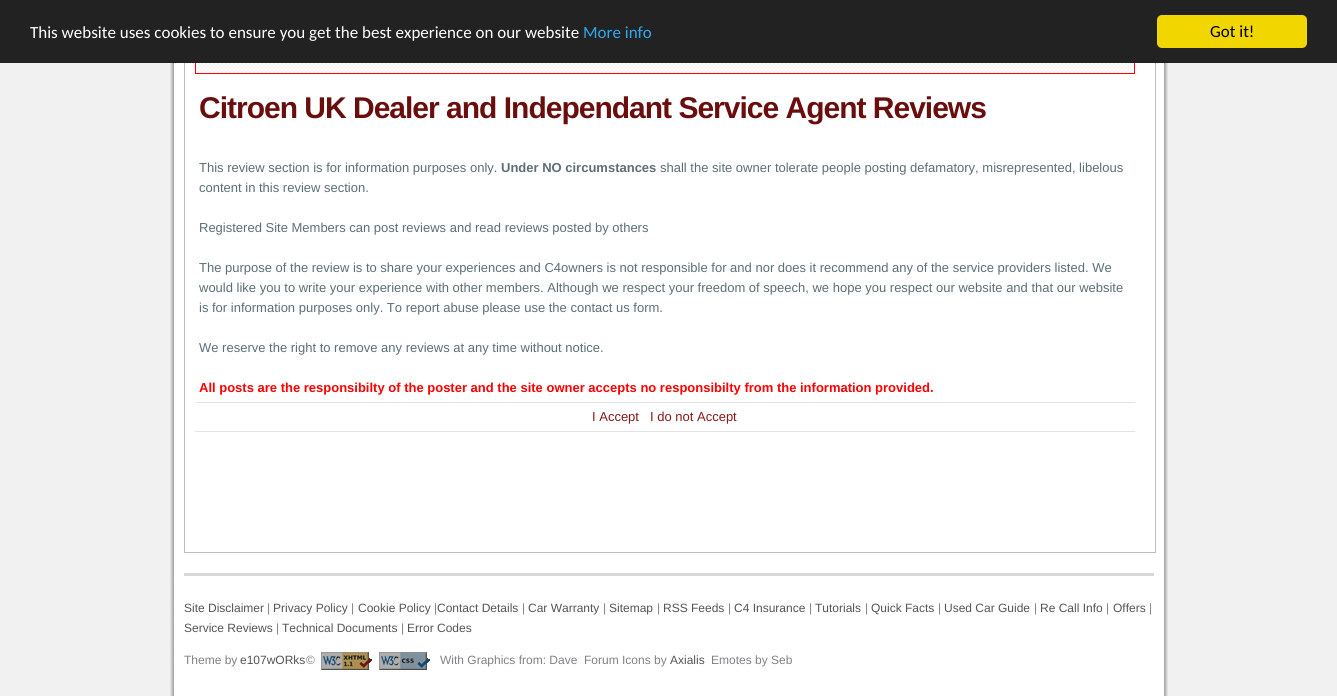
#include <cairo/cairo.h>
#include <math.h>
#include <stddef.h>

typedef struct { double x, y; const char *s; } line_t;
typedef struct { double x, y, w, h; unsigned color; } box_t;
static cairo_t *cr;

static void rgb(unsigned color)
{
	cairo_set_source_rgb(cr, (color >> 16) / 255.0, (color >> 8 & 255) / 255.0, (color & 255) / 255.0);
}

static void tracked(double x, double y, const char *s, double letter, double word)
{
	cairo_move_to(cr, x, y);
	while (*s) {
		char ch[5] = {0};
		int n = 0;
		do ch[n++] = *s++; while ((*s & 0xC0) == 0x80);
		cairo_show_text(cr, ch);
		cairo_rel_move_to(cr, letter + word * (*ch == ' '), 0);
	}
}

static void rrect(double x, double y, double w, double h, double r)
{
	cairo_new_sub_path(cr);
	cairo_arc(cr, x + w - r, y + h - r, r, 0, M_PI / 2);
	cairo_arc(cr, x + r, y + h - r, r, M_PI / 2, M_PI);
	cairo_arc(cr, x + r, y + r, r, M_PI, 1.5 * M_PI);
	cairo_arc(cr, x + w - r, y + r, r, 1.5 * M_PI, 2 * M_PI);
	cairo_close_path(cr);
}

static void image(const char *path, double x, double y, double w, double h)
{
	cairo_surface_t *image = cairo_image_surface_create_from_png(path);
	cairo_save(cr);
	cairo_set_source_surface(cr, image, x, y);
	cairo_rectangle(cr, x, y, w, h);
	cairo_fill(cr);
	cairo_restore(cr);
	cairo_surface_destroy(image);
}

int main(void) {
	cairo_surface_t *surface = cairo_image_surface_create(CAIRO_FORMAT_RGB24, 1337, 696);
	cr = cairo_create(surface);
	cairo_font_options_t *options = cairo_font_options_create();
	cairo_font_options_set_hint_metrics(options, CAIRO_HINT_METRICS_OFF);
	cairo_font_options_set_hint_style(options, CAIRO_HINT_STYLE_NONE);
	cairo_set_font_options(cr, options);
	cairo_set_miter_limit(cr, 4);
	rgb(0xf1f1f2);
	cairo_paint(cr);
	image("img/1.png", 170, 63, 998, 500);
	cairo_rectangle(cr, 184.5, -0.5, 971, 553);
	rgb(0xbfbfbf);
	cairo_set_line_width(cr, 1);
	cairo_stroke(cr);
	rgb(0x222222);
	cairo_rectangle(cr, 0, 0, 1337, 63);
	cairo_fill(cr);
	rgb(0xf1d600);
	rrect(1157, 15, 150, 33, 5);
	cairo_fill(cr);
	image("img/2.png", 196, 63, 938, 10);
	{
		static const box_t items[] = {
			{1134, 63, 1, 11, 0xff0000},
			{195, 73, 940, 1, 0xff0000},
			{195, 63, 1, 11, 0xff0000},
			{195, 402, 940, 1, 0xe3e3e3},
			{195, 431, 940, 1, 0xe3e3e3},
		};
		for (size_t i = 0; i < sizeof items / sizeof *items; i++) {
			rgb(items[i].color);
			cairo_rectangle(cr, items[i].x, items[i].y, items[i].w, items[i].h);
			cairo_fill(cr);
		}
	}
	image("img/3.png", 170, 563, 998, 133);
	rgb(0xd8d8d8);
	cairo_rectangle(cr, 184, 573, 970, 3);
	cairo_fill(cr);
	image("img/4.png", 321, 652, 51, 18);
	image("img/5.png", 379, 652, 51, 18);
	cairo_select_font_face(cr, "Carlito", CAIRO_FONT_SLANT_NORMAL, CAIRO_FONT_WEIGHT_NORMAL);
	cairo_set_font_size(cr, 17);
	rgb(0xffffff);
	cairo_move_to(cr, 30, 38);
	cairo_show_text(cr, "This website uses cookies to ensure you get the best experience on our website");
	rgb(0x31a8f0);
	cairo_move_to(cr, 583, 38);
	cairo_show_text(cr, "More info");
	rgb(0x000000);
	cairo_move_to(cr, 1210, 37);
	cairo_show_text(cr, "Got it!");
	cairo_select_font_face(cr, "Liberation Sans", CAIRO_FONT_SLANT_NORMAL, CAIRO_FONT_WEIGHT_BOLD);
	cairo_set_font_size(cr, 30);
	rgb(0x6a0d0d);
	tracked(199, 118, "Citroen UK Dealer and Independant Service Agent Reviews", -1, 0);
	cairo_select_font_face(cr, "Liberation Sans", CAIRO_FONT_SLANT_NORMAL, CAIRO_FONT_WEIGHT_NORMAL);
	cairo_set_font_size(cr, 13);
	rgb(0x5d6e75);
	cairo_move_to(cr, 199, 172);
	cairo_show_text(cr, "This review section is for information purposes only.");
	cairo_select_font_face(cr, "Liberation Sans", CAIRO_FONT_SLANT_NORMAL, CAIRO_FONT_WEIGHT_BOLD);
	cairo_move_to(cr, 501, 172);
	cairo_show_text(cr, "Under NO circumstances");
	cairo_select_font_face(cr, "Liberation Sans", CAIRO_FONT_SLANT_NORMAL, CAIRO_FONT_WEIGHT_NORMAL);
	{
		static const line_t items[] = {
			{660, 172, "shall the site owner tolerate people posting defamatory, misrepresented, libelous"},
			{199, 192, "content in this review section."},
			{199, 232, "Registered Site Members can post reviews and read reviews posted by others"},
			{199, 272, "The purpose of the review is to share your experiences and C4owners is not responsible for and nor does it recommend any of the service providers listed. We"},
			{199, 292, "would like you to write your experience with other members. Although we respect your freedom of speech, we hope you respect our website and that our website"},
			{199, 312, "is for information purposes only. To report abuse please use the contact us form."},
			{199, 352, "We reserve the right to remove any reviews at any time without notice."},
		};
		for (size_t i = 0; i < sizeof items / sizeof *items; i++) {
			cairo_move_to(cr, items[i].x, items[i].y);
			cairo_show_text(cr, items[i].s);
		}
	}
	cairo_select_font_face(cr, "Liberation Sans", CAIRO_FONT_SLANT_NORMAL, CAIRO_FONT_WEIGHT_BOLD);
	rgb(0xff0000);
	cairo_move_to(cr, 199, 392);
	cairo_show_text(cr, "All posts are the responsibilty of the poster and the site owner accepts no responsibilty from the information provided.");
	cairo_select_font_face(cr, "Liberation Sans", CAIRO_FONT_SLANT_NORMAL, CAIRO_FONT_WEIGHT_NORMAL);
	rgb(0x8b1717);
	cairo_move_to(cr, 592, 421);
	cairo_show_text(cr, "I Accept");
	cairo_move_to(cr, 650, 421);
	cairo_show_text(cr, "I do not Accept");
	cairo_set_font_size(cr, 12);
	rgb(0x545454);
	cairo_move_to(cr, 184, 612);
	cairo_show_text(cr, "Site Disclaimer");
	rgb(0x808185);
	cairo_move_to(cr, 267, 612);
	cairo_show_text(cr, "|");
	rgb(0x545454);
	cairo_move_to(cr, 273, 612);
	cairo_show_text(cr, "Privacy Policy");
	rgb(0x808185);
	cairo_move_to(cr, 351, 612);
	cairo_show_text(cr, "|");
	rgb(0x545454);
	cairo_move_to(cr, 358, 612);
	cairo_show_text(cr, "Cookie Policy");
	rgb(0x808185);
	cairo_move_to(cr, 434, 612);
	cairo_show_text(cr, "|");
	rgb(0x545454);
	cairo_move_to(cr, 437, 612);
	cairo_show_text(cr, "Contact Details");
	rgb(0x808185);
	cairo_move_to(cr, 522, 612);
	cairo_show_text(cr, "|");
	rgb(0x545454);
	cairo_move_to(cr, 528, 612);
	cairo_show_text(cr, "Car Warranty");
	rgb(0x808185);
	cairo_move_to(cr, 603, 612);
	cairo_show_text(cr, "|");
	rgb(0x545454);
	cairo_move_to(cr, 609, 612);
	cairo_show_text(cr, "Sitemap");
	rgb(0x808185);
	cairo_move_to(cr, 657, 612);
	cairo_show_text(cr, "|");
	rgb(0x545454);
	cairo_move_to(cr, 663, 612);
	cairo_show_text(cr, "RSS Feeds");
	rgb(0x808185);
	cairo_move_to(cr, 728, 612);
	cairo_show_text(cr, "|");
	rgb(0x545454);
	cairo_move_to(cr, 734, 612);
	cairo_show_text(cr, "C4 Insurance");
	rgb(0x808185);
	cairo_move_to(cr, 809, 612);
	cairo_show_text(cr, "|");
	rgb(0x545454);
	cairo_move_to(cr, 815, 612);
	cairo_show_text(cr, "Tutorials");
	rgb(0x808185);
	cairo_move_to(cr, 865, 612);
	cairo_show_text(cr, "|");
	rgb(0x545454);
	cairo_move_to(cr, 871, 612);
	cairo_show_text(cr, "Quick Facts");
	rgb(0x808185);
	cairo_move_to(cr, 938, 612);
	cairo_show_text(cr, "|");
	rgb(0x545454);
	cairo_move_to(cr, 944, 612);
	cairo_show_text(cr, "Used Car Guide");
	rgb(0x808185);
	cairo_move_to(cr, 1034, 612);
	cairo_show_text(cr, "|");
	rgb(0x545454);
	cairo_move_to(cr, 1040, 612);
	cairo_show_text(cr, "Re Call Info");
	rgb(0x808185);
	cairo_move_to(cr, 1106, 612);
	cairo_show_text(cr, "|");
	rgb(0x545454);
	cairo_move_to(cr, 1113, 612);
	cairo_show_text(cr, "Offers");
	rgb(0x808185);
	cairo_move_to(cr, 1149, 612);
	cairo_show_text(cr, "|");
	rgb(0x545454);
	cairo_move_to(cr, 184, 632);
	cairo_show_text(cr, "Service Reviews");
	rgb(0x808185);
	cairo_move_to(cr, 276, 632);
	cairo_show_text(cr, "|");
	rgb(0x545454);
	cairo_move_to(cr, 282, 632);
	cairo_show_text(cr, "Technical Documents");
	rgb(0x808185);
	cairo_move_to(cr, 401, 632);
	cairo_show_text(cr, "|");
	rgb(0x545454);
	cairo_move_to(cr, 407, 632);
	cairo_show_text(cr, "Error Codes");
	rgb(0x808185);
	cairo_move_to(cr, 184, 664);
	cairo_show_text(cr, "Theme by");
	rgb(0x545454);
	cairo_move_to(cr, 240, 664);
	cairo_show_text(cr, "e107wORks");
	rgb(0x808185);
	cairo_move_to(cr, 306, 664);
	cairo_show_text(cr, "©");
	cairo_move_to(cr, 440, 664);
	cairo_show_text(cr, "With Graphics from: Dave  Forum Icons by");
	rgb(0x545454);
	cairo_move_to(cr, 670, 664);
	cairo_show_text(cr, "Axialis");
	rgb(0x808185);
	cairo_move_to(cr, 711, 664);
	cairo_show_text(cr, "Emotes by Seb");
	cairo_surface_write_to_png(surface, "page.png");
	cairo_font_options_destroy(options);
	cairo_destroy(cr);
	cairo_surface_destroy(surface);
	return 0;
}
